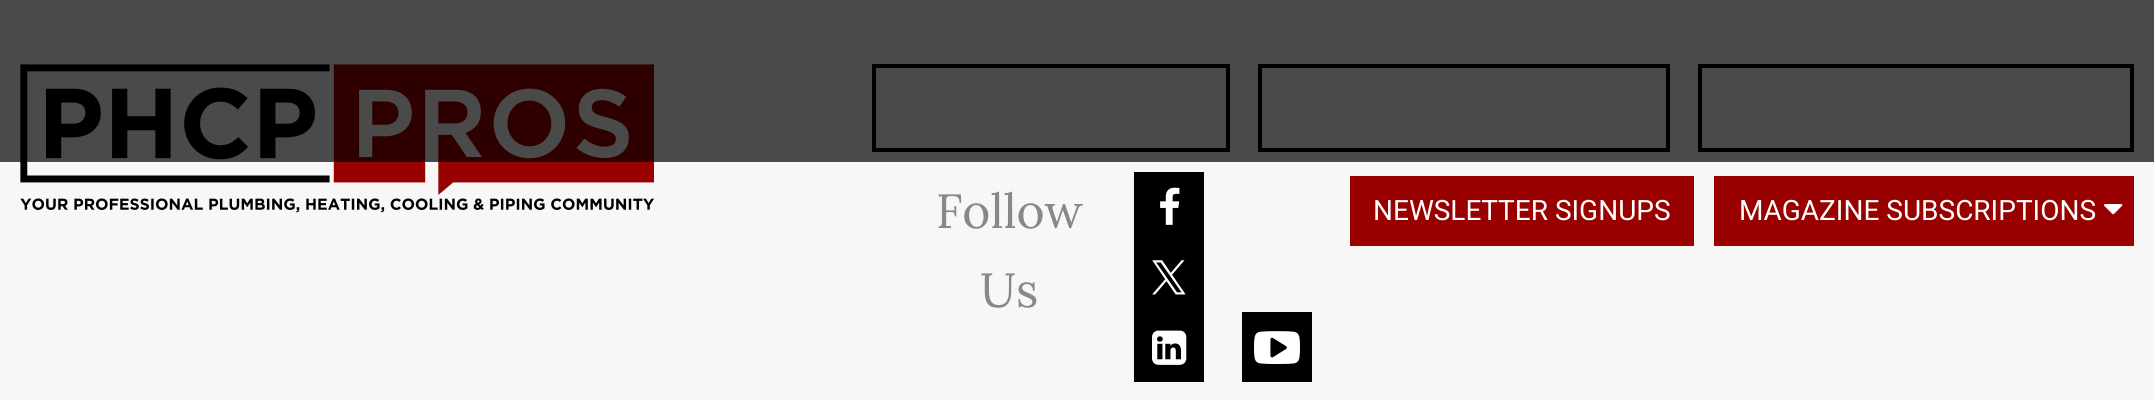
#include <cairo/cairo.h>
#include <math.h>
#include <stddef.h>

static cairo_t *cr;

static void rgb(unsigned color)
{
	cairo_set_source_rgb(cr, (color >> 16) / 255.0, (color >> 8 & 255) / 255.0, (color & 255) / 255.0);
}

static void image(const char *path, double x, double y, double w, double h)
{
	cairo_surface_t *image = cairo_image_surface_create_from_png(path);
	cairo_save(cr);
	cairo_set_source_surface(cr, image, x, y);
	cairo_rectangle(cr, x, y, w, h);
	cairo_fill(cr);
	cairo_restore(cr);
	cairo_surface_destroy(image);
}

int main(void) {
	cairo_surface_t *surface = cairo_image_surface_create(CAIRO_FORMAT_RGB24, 2154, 400);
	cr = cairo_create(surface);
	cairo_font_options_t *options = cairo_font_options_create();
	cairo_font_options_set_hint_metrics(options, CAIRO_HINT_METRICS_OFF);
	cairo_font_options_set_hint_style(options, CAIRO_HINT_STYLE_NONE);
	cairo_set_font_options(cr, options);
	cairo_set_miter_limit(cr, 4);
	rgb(0xf7f7f7);
	cairo_paint(cr);
	image("img/1.png", 20, 64, 634, 149);
	cairo_rectangle(cr, 874, 66, 354, 84);
	rgb(0x000000);
	cairo_set_line_width(cr, 4);
	cairo_stroke(cr);
	cairo_rectangle(cr, 1260, 66, 408, 84);
	cairo_stroke(cr);
	cairo_rectangle(cr, 1700, 66, 432, 84);
	cairo_stroke(cr);
	cairo_set_source_rgba(cr, 0, 0, 0, 0.7);
	cairo_rectangle(cr, 0, 0, 2154, 162);
	cairo_fill(cr);
	rgb(0x000000);
	cairo_rectangle(cr, 1134, 172, 70, 210);
	cairo_fill(cr);
	image("img/2.png", 1160, 187, 20, 38);
	image("img/3.png", 1152, 260, 34, 35);
	image("img/4.png", 1152, 330, 35, 35);
	cairo_rectangle(cr, 1242, 312, 70, 70);
	cairo_fill(cr);
	image("img/5.png", 1254, 331, 46, 33);
	rgb(0x990000);
	cairo_rectangle(cr, 1350, 176, 344, 70);
	cairo_fill(cr);
	cairo_rectangle(cr, 1714, 176, 420, 70);
	cairo_fill(cr);
	image("img/6.png", 2104, 204, 19, 11);
	cairo_select_font_face(cr, "Lora", CAIRO_FONT_SLANT_NORMAL, CAIRO_FONT_WEIGHT_NORMAL);
	cairo_set_font_size(cr, 48);
	rgb(0x888888);
	cairo_move_to(cr, 936, 228);
	cairo_show_text(cr, "Follow");
	cairo_move_to(cr, 980, 307);
	cairo_show_text(cr, "Us");
	cairo_select_font_face(cr, "Roboto", CAIRO_FONT_SLANT_NORMAL, CAIRO_FONT_WEIGHT_NORMAL);
	cairo_set_font_size(cr, 28);
	rgb(0xffffff);
	cairo_move_to(cr, 1373, 220);
	cairo_show_text(cr, "NEWSLETTER SIGNUPS");
	cairo_move_to(cr, 1739, 220);
	cairo_show_text(cr, "MAGAZINE SUBSCRIPTIONS");
	cairo_surface_write_to_png(surface, "page.png");
	cairo_font_options_destroy(options);
	cairo_destroy(cr);
	cairo_surface_destroy(surface);
	return 0;
}
